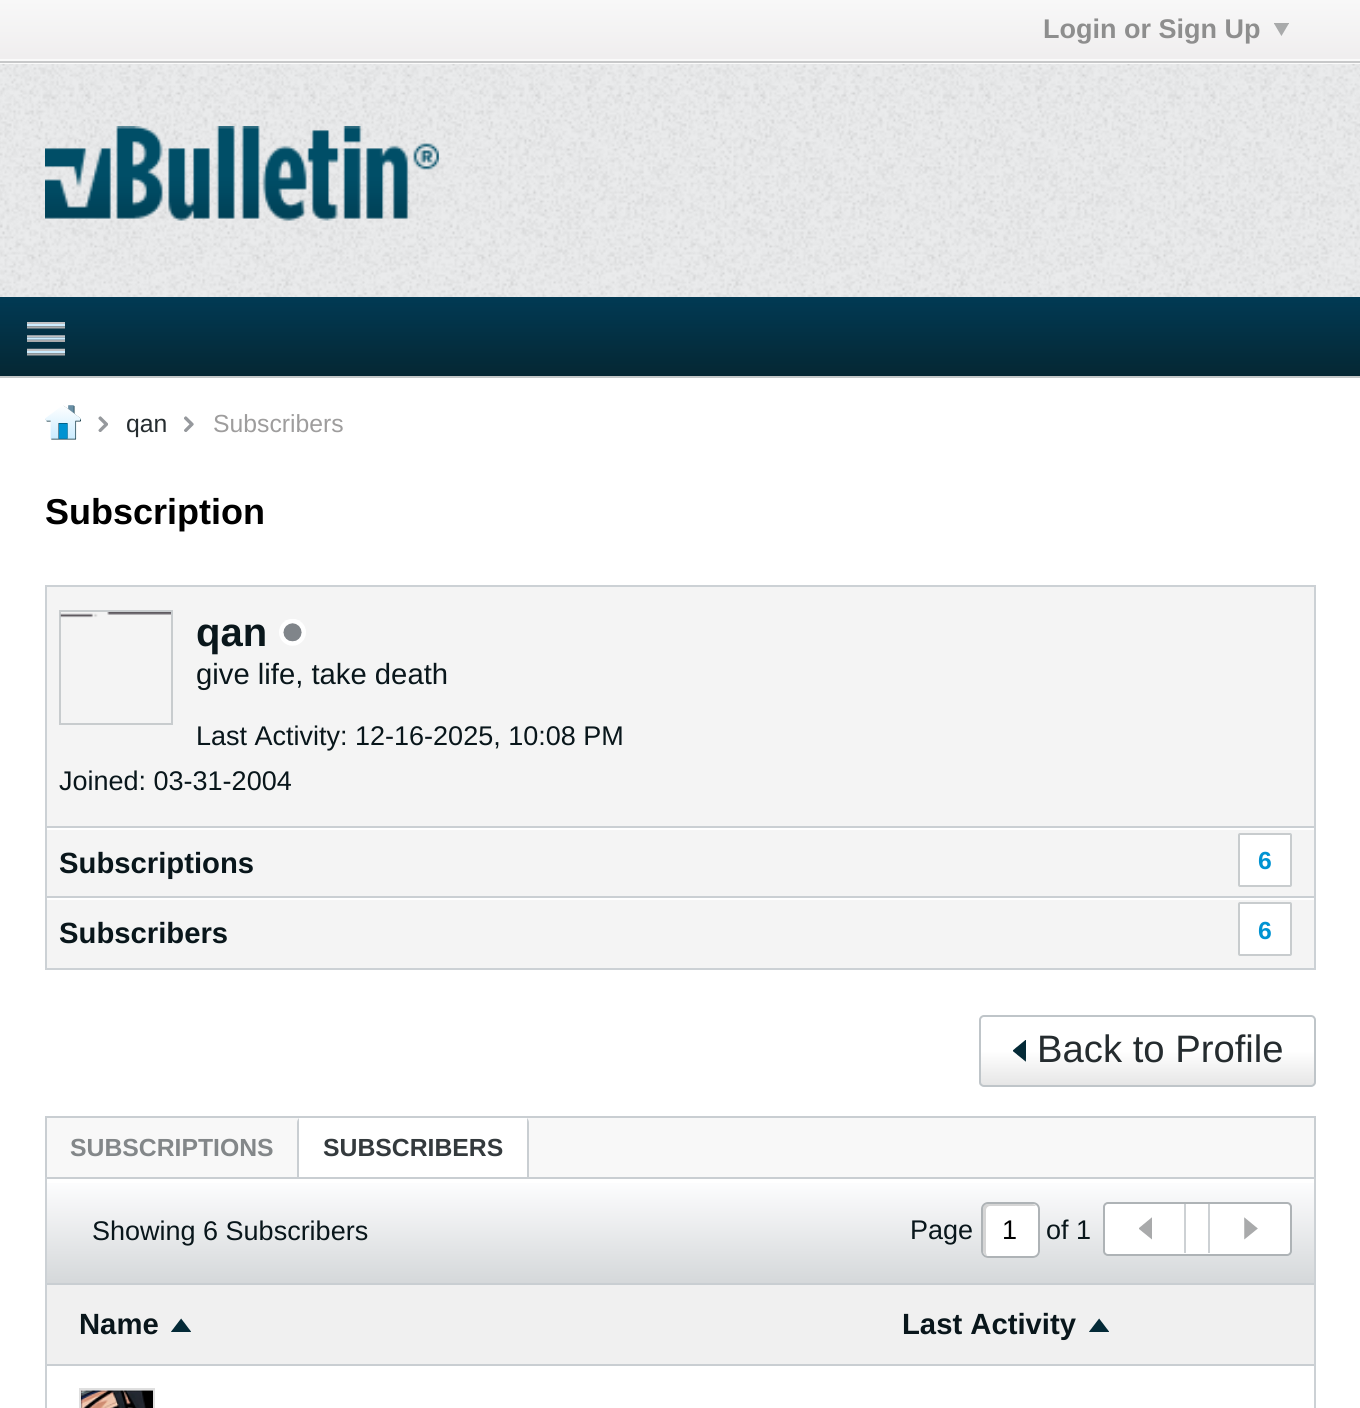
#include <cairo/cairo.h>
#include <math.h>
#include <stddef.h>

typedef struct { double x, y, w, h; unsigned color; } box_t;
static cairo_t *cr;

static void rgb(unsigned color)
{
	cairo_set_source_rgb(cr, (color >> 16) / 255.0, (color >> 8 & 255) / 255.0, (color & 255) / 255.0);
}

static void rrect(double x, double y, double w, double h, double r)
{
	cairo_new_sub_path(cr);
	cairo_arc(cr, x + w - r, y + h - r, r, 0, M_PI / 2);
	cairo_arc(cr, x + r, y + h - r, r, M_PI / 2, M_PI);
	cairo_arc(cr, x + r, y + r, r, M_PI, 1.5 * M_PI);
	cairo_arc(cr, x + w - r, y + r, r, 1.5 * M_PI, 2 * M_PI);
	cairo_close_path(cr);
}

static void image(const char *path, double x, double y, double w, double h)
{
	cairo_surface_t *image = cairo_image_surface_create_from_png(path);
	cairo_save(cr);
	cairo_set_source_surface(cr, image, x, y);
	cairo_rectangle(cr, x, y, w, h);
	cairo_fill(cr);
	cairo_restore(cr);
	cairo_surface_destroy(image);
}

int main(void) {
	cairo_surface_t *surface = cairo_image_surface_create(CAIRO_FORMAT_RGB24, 1360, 1408);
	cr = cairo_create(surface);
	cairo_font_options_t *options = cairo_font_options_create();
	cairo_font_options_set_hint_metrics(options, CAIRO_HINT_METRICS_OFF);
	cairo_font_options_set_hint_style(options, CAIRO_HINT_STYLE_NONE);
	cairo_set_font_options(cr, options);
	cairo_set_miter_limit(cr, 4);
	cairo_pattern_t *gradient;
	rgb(0xeaebec);
	cairo_paint(cr);
	gradient = cairo_pattern_create_linear(681, 0, 681, 63);
	cairo_pattern_add_color_stop_rgba(gradient, 0, 0.973, 0.973, 0.973, 1);
	cairo_pattern_add_color_stop_rgba(gradient, 1, 0.937, 0.929, 0.933, 1);
	cairo_set_source(cr, gradient);
	cairo_pattern_destroy(gradient);
	cairo_rectangle(cr, 0, 0, 1360, 59);
	cairo_fill(cr);
	image("img/1.png", 1274, 23, 15, 13);
	rgb(0xfafafa);
	cairo_rectangle(cr, 0, 59, 1360, 5);
	cairo_fill(cr);
	rgb(0xc7c8c9);
	cairo_rectangle(cr, 0, 61, 1360, 2);
	cairo_fill(cr);
	image("img/2.png", 0, 64, 1360, 233);
	image("img/3.png", 45, 126, 394, 95);
	gradient = cairo_pattern_create_linear(681, 297, 681, 376);
	cairo_pattern_add_color_stop_rgba(gradient, 0, 0.004, 0.227, 0.329, 1);
	cairo_pattern_add_color_stop_rgba(gradient, 1, 0.02, 0.153, 0.2, 1);
	cairo_set_source(cr, gradient);
	cairo_pattern_destroy(gradient);
	cairo_rectangle(cr, 0, 297, 1360, 79);
	cairo_fill(cr);
	rgb(0xc4c7c8);
	cairo_rectangle(cr, 0, 376, 1360, 2);
	cairo_fill(cr);
	image("img/4.png", 27, 322, 38, 34);
	rgb(0xffffff);
	cairo_rectangle(cr, 0, 378, 1360, 1030);
	cairo_fill(cr);
	image("img/5.png", 45, 405, 36, 35);
	image("img/6.png", 98, 416, 10, 16);
	image("img/7.png", 184, 416, 10, 16);
	cairo_rectangle(cr, 46, 586, 1269, 383);
	rgb(0xccd1d5);
	cairo_stroke(cr);
	rgb(0xf4f4f4);
	cairo_rectangle(cr, 47, 587, 1267, 381);
	cairo_fill(cr);
	cairo_rectangle(cr, 60, 611, 112, 113);
	rgb(0xc8ccce);
	cairo_stroke(cr);
	image("img/8.png", 60, 612, 111, 6);
	image("img/9.png", 279, 619, 27, 27);
	{
		static const box_t items[] = {
			{47, 826, 1267, 2, 0xcacfd3},
			{47, 828, 1267, 2, 0xffffff},
			{47, 896, 1267, 2, 0xcacfd3},
		};
		for (size_t i = 0; i < sizeof items / sizeof *items; i++) {
			rgb(items[i].color);
			cairo_rectangle(cr, items[i].x, items[i].y, items[i].w, items[i].h);
			cairo_fill(cr);
		}
	}
	rgb(0xffffff);
	rrect(1239, 834, 52, 52, 1);
	cairo_fill_preserve(cr);
	rgb(0xc8ccce);
	cairo_stroke(cr);
	rgb(0xffffff);
	cairo_rectangle(cr, 47, 898, 1267, 2);
	cairo_fill(cr);
	rrect(1239, 903, 52, 52, 1);
	cairo_fill_preserve(cr);
	rgb(0xc8ccce);
	cairo_stroke(cr);
	cairo_save(cr);
	rrect(979, 1015, 337, 72, 5);
	cairo_clip(cr);
	gradient = cairo_pattern_create_linear(1148, 1085, 1148, 1017);
	cairo_pattern_add_color_stop_rgba(gradient, 0, 0.902, 0.902, 0.902, 1);
	cairo_pattern_add_color_stop_rgba(gradient, 0.5, 1, 1, 1, 1);
	cairo_pattern_add_color_stop_rgba(gradient, 1, 1, 1, 1, 1);
	cairo_set_source(cr, gradient);
	cairo_pattern_destroy(gradient);
	cairo_rectangle(cr, 979, 1017, 337, 68);
	cairo_fill(cr);
	cairo_restore(cr);
	rrect(980, 1016, 335, 70, 4);
	rgb(0xbfc5c9);
	cairo_stroke(cr);
	image("img/10.png", 1013, 1040, 13, 22);
	cairo_rectangle(cr, 46, 1117, 1269, 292);
	rgb(0xccd1d5);
	cairo_stroke(cr);
	{
		static const box_t items[] = {
			{47, 1118, 1267, 59, 0xf8f8f8},
			{45, 1116, 1271, 2, 0xc9ced2},
			{1314, 1116, 2, 61, 0xc9ced2},
			{45, 1116, 2, 61, 0xc9ced2},
		};
		for (size_t i = 0; i < sizeof items / sizeof *items; i++) {
			rgb(items[i].color);
			cairo_rectangle(cr, items[i].x, items[i].y, items[i].w, items[i].h);
			cairo_fill(cr);
		}
	}
	cairo_set_fill_rule(cr, CAIRO_FILL_RULE_EVEN_ODD);
	cairo_new_path(cr);
	cairo_move_to(cr, 304, 1116);
	cairo_line_to(cr, 522, 1116);
	cairo_curve_to(cr, 526, 1116, 529, 1119, 529, 1123);
	cairo_line_to(cr, 529, 1177);
	cairo_line_to(cr, 297, 1177);
	cairo_line_to(cr, 297, 1123);
	cairo_curve_to(cr, 297, 1119, 300, 1116, 304, 1116);
	cairo_close_path(cr);
	cairo_move_to(cr, 304, 1118);
	cairo_line_to(cr, 522, 1118);
	cairo_curve_to(cr, 524, 1118, 526, 1120, 526, 1123);
	cairo_line_to(cr, 526, 1177);
	cairo_line_to(cr, 299, 1177);
	cairo_line_to(cr, 299, 1123);
	cairo_curve_to(cr, 299, 1120, 301, 1118, 304, 1118);
	cairo_close_path(cr);
	cairo_fill(cr);
	rgb(0xffffff);
	cairo_rectangle(cr, 299, 1118, 228, 59);
	cairo_fill(cr);
	gradient = cairo_pattern_create_linear(681, 1179, 681, 1283);
	cairo_pattern_add_color_stop_rgba(gradient, 0, 0.996, 0.996, 1, 1);
	cairo_pattern_add_color_stop_rgba(gradient, 1, 0.835, 0.847, 0.855, 1);
	cairo_set_source(cr, gradient);
	cairo_pattern_destroy(gradient);
	cairo_rectangle(cr, 47, 1183, 1267, 100);
	cairo_fill(cr);
	rgb(0xc9ced2);
	cairo_rectangle(cr, 47, 1177, 1267, 2);
	cairo_fill(cr);
	cairo_rectangle(cr, 47, 1283, 1267, 2);
	cairo_fill(cr);
	rgb(0xffffff);
	rrect(981, 1202, 59, 56, 7);
	cairo_fill(cr);
	rgb(0xd5d5d5);
	cairo_set_fill_rule(cr, CAIRO_FILL_RULE_WINDING);
	cairo_new_path(cr);
	cairo_move_to(cr, 990, 1206);
	cairo_line_to(cr, 1036, 1206);
	cairo_curve_to(cr, 1035, 1205, 1034, 1204, 1032, 1204);
	cairo_line_to(cr, 988, 1204);
	cairo_curve_to(cr, 985, 1204, 983, 1206, 983, 1209);
	cairo_line_to(cr, 983, 1251);
	cairo_curve_to(cr, 983, 1253, 985, 1255, 987, 1256);
	cairo_line_to(cr, 986, 1253);
	cairo_line_to(cr, 986, 1210);
	cairo_curve_to(cr, 986, 1208, 988, 1206, 990, 1206);
	cairo_close_path(cr);
	cairo_fill(cr);
	rrect(982, 1203, 57, 54, 6);
	rgb(0xaeb3b6);
	cairo_stroke(cr);
	rgb(0xffffff);
	rrect(1104, 1203, 187, 52, 4);
	cairo_fill_preserve(cr);
	rgb(0xaeb3b6);
	cairo_stroke(cr);
	rgb(0xcdd1d4);
	cairo_rectangle(cr, 1184, 1204, 2, 49);
	cairo_fill(cr);
	image("img/11.png", 1139, 1217, 13, 23);
	cairo_rectangle(cr, 1208, 1204, 2, 49);
	cairo_fill(cr);
	image("img/12.png", 1244, 1217, 14, 23);
	rgb(0xf0f0f0);
	cairo_rectangle(cr, 47, 1285, 1267, 79);
	cairo_fill(cr);
	rgb(0xc9ced2);
	cairo_rectangle(cr, 47, 1364, 1267, 2);
	cairo_fill(cr);
	image("img/13.png", 171, 1318, 20, 14);
	image("img/13.png", 1089, 1318, 20, 14);
	cairo_rectangle(cr, 80, 1389, 74, 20);
	rgb(0xdfdfdf);
	cairo_stroke(cr);
	image("img/14.png", 81, 1390, 72, 18);
	cairo_select_font_face(cr, "Liberation Sans", CAIRO_FONT_SLANT_NORMAL, CAIRO_FONT_WEIGHT_BOLD);
	cairo_set_font_size(cr, 27);
	rgb(0x8e8e8e);
	cairo_move_to(cr, 1043, 38);
	cairo_show_text(cr, "Login or Sign Up");
	cairo_select_font_face(cr, "Liberation Sans", CAIRO_FONT_SLANT_NORMAL, CAIRO_FONT_WEIGHT_NORMAL);
	cairo_set_font_size(cr, 24.75);
	rgb(0x252c2f);
	cairo_move_to(cr, 126, 432);
	cairo_show_text(cr, "qan");
	rgb(0x9e9d9d);
	cairo_move_to(cr, 213, 432);
	cairo_show_text(cr, "Subscribers");
	cairo_select_font_face(cr, "Liberation Sans", CAIRO_FONT_SLANT_NORMAL, CAIRO_FONT_WEIGHT_BOLD);
	cairo_set_font_size(cr, 36);
	rgb(0x000000);
	cairo_move_to(cr, 45, 524);
	cairo_show_text(cr, "Subscription");
	cairo_set_font_size(cr, 40);
	rgb(0x09161b);
	cairo_move_to(cr, 196, 646);
	cairo_show_text(cr, "qan");
	cairo_select_font_face(cr, "Liberation Sans", CAIRO_FONT_SLANT_NORMAL, CAIRO_FONT_WEIGHT_NORMAL);
	cairo_set_font_size(cr, 29.25);
	cairo_move_to(cr, 196, 684);
	cairo_show_text(cr, "give life, take death");
	cairo_set_font_size(cr, 27);
	cairo_move_to(cr, 196, 745);
	cairo_show_text(cr, "Last Activity: 12-16-2025, 10:08 PM");
	cairo_move_to(cr, 59, 790);
	cairo_show_text(cr, "Joined: 03-31-2004");
	cairo_select_font_face(cr, "Liberation Sans", CAIRO_FONT_SLANT_NORMAL, CAIRO_FONT_WEIGHT_BOLD);
	cairo_set_font_size(cr, 29.25);
	cairo_move_to(cr, 59, 873);
	cairo_show_text(cr, "Subscriptions");
	cairo_set_font_size(cr, 24.75);
	rgb(0x0093d2);
	cairo_move_to(cr, 1258, 869);
	cairo_show_text(cr, "6");
	cairo_set_font_size(cr, 29.25);
	rgb(0x09161b);
	cairo_move_to(cr, 59, 943);
	cairo_show_text(cr, "Subscribers");
	cairo_set_font_size(cr, 24.75);
	rgb(0x0093d2);
	cairo_move_to(cr, 1258, 939);
	cairo_show_text(cr, "6");
	cairo_select_font_face(cr, "Liberation Sans", CAIRO_FONT_SLANT_NORMAL, CAIRO_FONT_WEIGHT_NORMAL);
	cairo_set_font_size(cr, 38.25);
	rgb(0x252c2f);
	cairo_move_to(cr, 1037, 1062);
	cairo_show_text(cr, "Back to Profile");
	cairo_select_font_face(cr, "Liberation Sans", CAIRO_FONT_SLANT_NORMAL, CAIRO_FONT_WEIGHT_BOLD);
	cairo_set_font_size(cr, 24.75);
	rgb(0x838789);
	cairo_move_to(cr, 70, 1156);
	cairo_show_text(cr, "SUBSCRIPTIONS");
	rgb(0x343a3d);
	cairo_move_to(cr, 323, 1156);
	cairo_show_text(cr, "SUBSCRIBERS");
	cairo_select_font_face(cr, "Liberation Sans", CAIRO_FONT_SLANT_NORMAL, CAIRO_FONT_WEIGHT_NORMAL);
	cairo_set_font_size(cr, 27);
	rgb(0x09161b);
	cairo_move_to(cr, 92, 1240);
	cairo_show_text(cr, "Showing 6 Subscribers");
	cairo_move_to(cr, 910, 1239);
	cairo_show_text(cr, "Page");
	rgb(0x000000);
	cairo_move_to(cr, 1002, 1239);
	cairo_show_text(cr, "1");
	rgb(0x09161b);
	cairo_move_to(cr, 1046, 1239);
	cairo_show_text(cr, "of 1");
	cairo_select_font_face(cr, "Liberation Sans", CAIRO_FONT_SLANT_NORMAL, CAIRO_FONT_WEIGHT_BOLD);
	cairo_set_font_size(cr, 29.25);
	cairo_move_to(cr, 79, 1334);
	cairo_show_text(cr, "Name");
	cairo_move_to(cr, 902, 1334);
	cairo_show_text(cr, "Last Activity");
	cairo_surface_write_to_png(surface, "page.png");
	cairo_font_options_destroy(options);
	cairo_destroy(cr);
	cairo_surface_destroy(surface);
	return 0;
}
